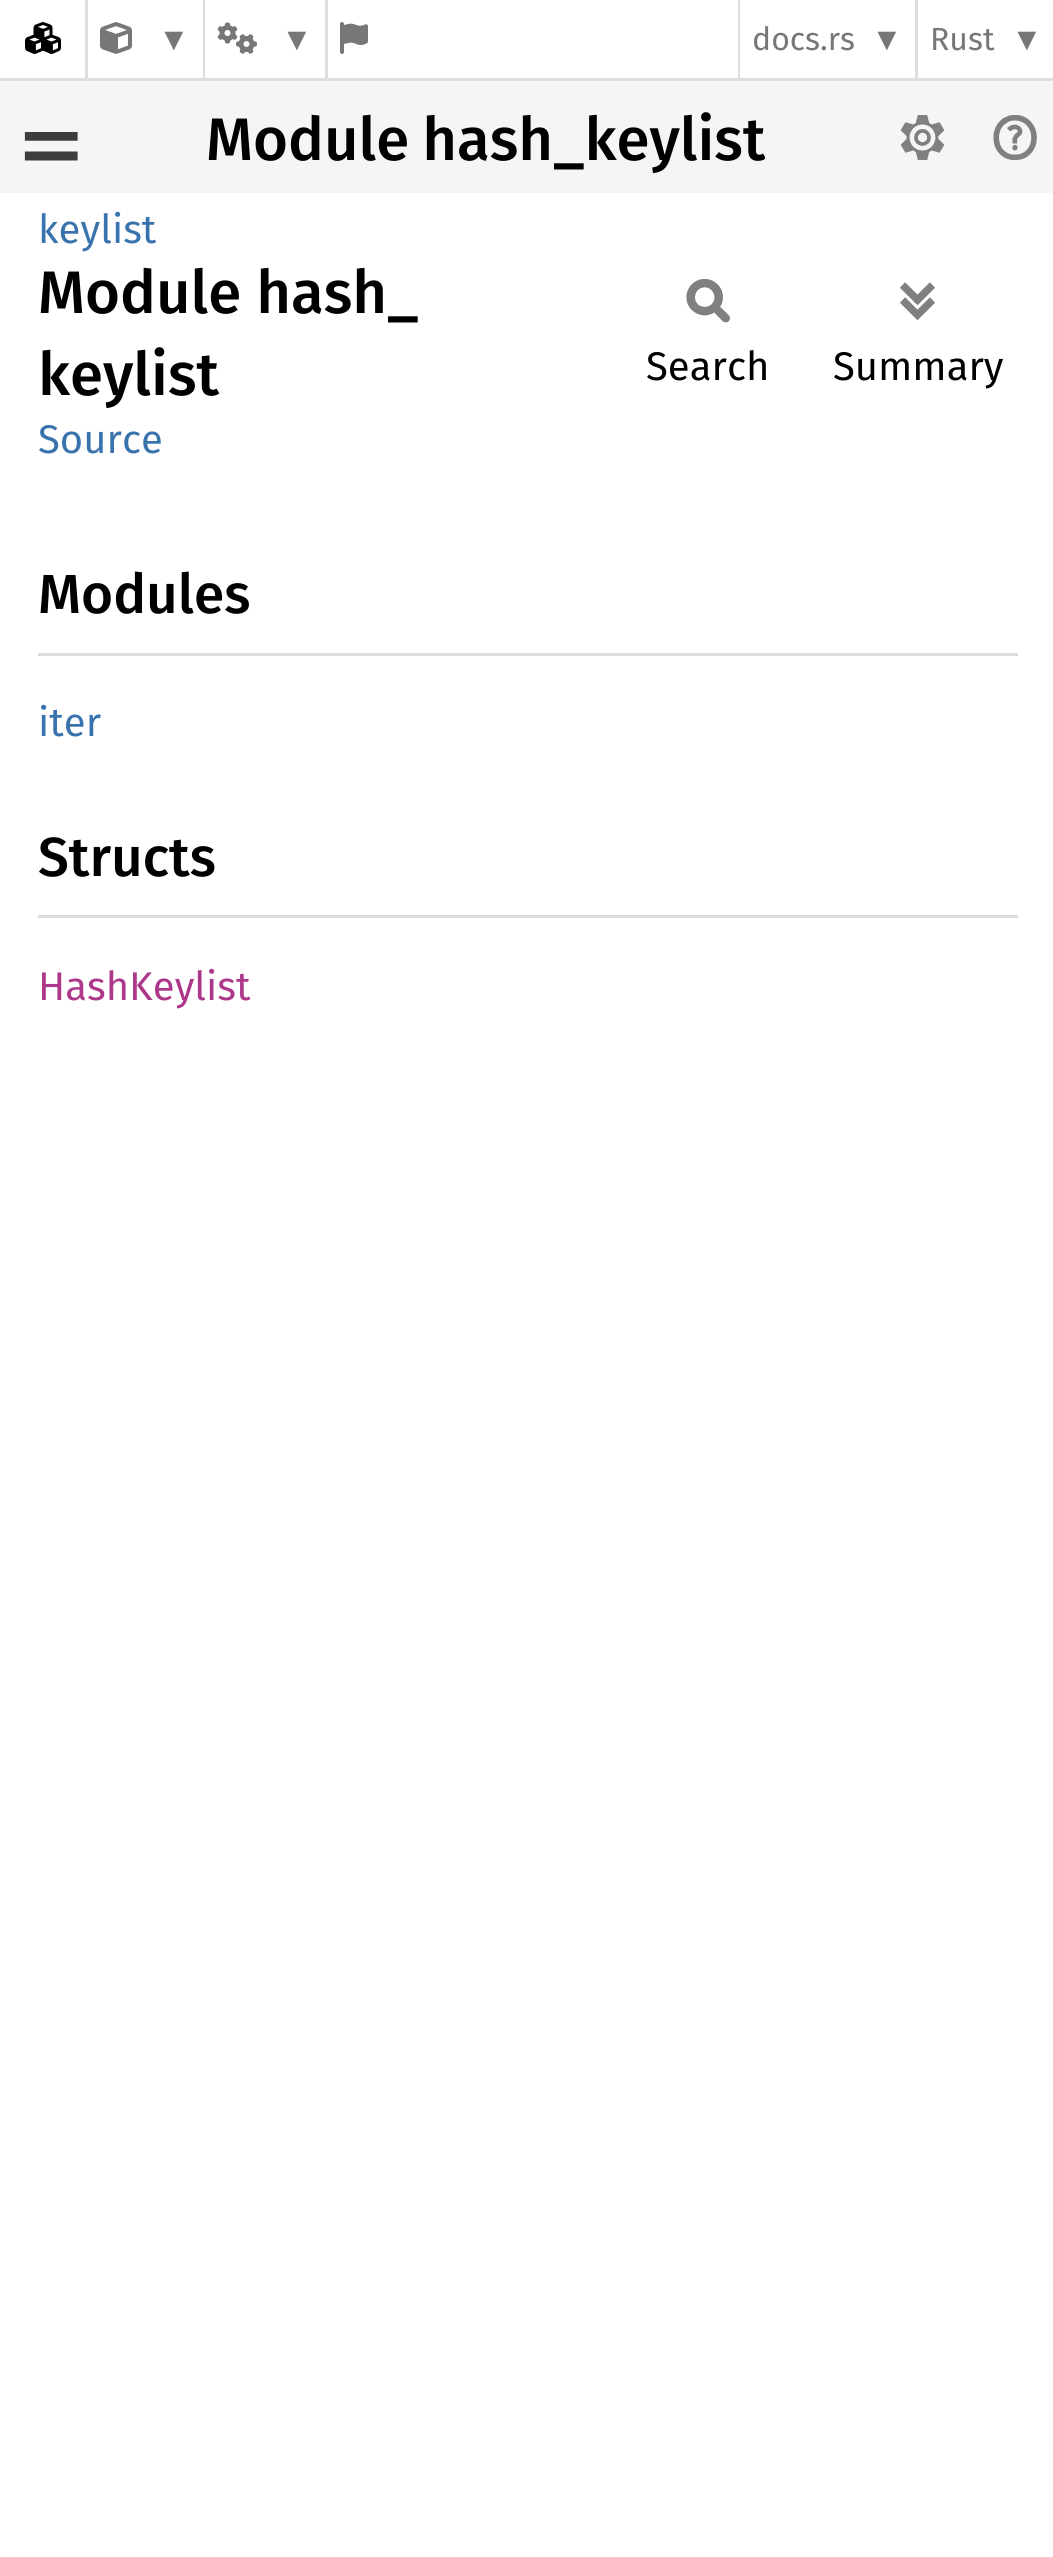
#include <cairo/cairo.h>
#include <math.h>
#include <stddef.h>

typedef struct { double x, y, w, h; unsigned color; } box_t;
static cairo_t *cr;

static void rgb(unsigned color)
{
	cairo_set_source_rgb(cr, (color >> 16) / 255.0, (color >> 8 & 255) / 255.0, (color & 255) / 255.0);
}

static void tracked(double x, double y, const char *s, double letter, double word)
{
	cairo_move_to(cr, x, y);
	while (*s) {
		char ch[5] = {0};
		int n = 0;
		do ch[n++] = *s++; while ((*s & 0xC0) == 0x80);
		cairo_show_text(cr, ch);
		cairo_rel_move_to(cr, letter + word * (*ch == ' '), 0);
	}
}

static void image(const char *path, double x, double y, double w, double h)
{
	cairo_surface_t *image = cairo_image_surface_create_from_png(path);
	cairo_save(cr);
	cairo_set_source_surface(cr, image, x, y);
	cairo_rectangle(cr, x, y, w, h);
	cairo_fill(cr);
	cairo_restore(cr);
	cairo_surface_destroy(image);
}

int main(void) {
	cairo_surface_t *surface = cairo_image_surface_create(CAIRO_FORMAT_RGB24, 1053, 2557);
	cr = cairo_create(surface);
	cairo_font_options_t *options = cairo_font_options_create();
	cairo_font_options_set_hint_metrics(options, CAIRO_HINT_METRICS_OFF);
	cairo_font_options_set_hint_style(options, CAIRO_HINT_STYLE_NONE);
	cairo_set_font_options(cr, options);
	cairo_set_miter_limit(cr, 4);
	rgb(0xffffff);
	cairo_paint(cr);
	rgb(0xdddddd);
	cairo_rectangle(cr, 0, 78, 1053, 3);
	cairo_fill(cr);
	image("img/1.png", 25, 22, 36, 32);
	cairo_rectangle(cr, 85, 0, 3, 78);
	cairo_fill(cr);
	image("img/2.png", 100, 22, 32, 32);
	cairo_rectangle(cr, 203, 0, 2, 78);
	cairo_fill(cr);
	image("img/3.png", 217, 22, 40, 32);
	cairo_rectangle(cr, 325, 0, 3, 78);
	cairo_fill(cr);
	image("img/4.png", 340, 22, 28, 32);
	{
		static const box_t items[] = {
			{738, 0, 2, 78, 0xdddddd},
			{915, 0, 3, 78, 0xdddddd},
			{0, 81, 1053, 112, 0xf5f5f5},
		};
		for (size_t i = 0; i < sizeof items / sizeof *items; i++) {
			rgb(items[i].color);
			cairo_rectangle(cr, items[i].x, items[i].y, items[i].w, items[i].h);
			cairo_fill(cr);
		}
	}
	image("img/5.png", 24, 132, 54, 29);
	image("img/6.png", 900, 115, 45, 45);
	image("img/7.png", 993, 115, 44, 45);
	image("img/8.png", 686, 279, 44, 44);
	image("img/9.png", 900, 282, 35, 39);
	rgb(0xdddddd);
	cairo_rectangle(cr, 38, 653, 980, 3);
	cairo_fill(cr);
	cairo_rectangle(cr, 38, 915, 980, 3);
	cairo_fill(cr);
	cairo_select_font_face(cr, "Liberation Sans", CAIRO_FONT_SLANT_NORMAL, CAIRO_FONT_WEIGHT_NORMAL);
	cairo_set_font_size(cr, 32);
	rgb(0x777777);
	cairo_move_to(cr, 158, 50);
	cairo_show_text(cr, "▼");
	cairo_move_to(cr, 281, 50);
	cairo_show_text(cr, "▼");
	cairo_select_font_face(cr, "Fira Sans", CAIRO_FONT_SLANT_NORMAL, CAIRO_FONT_WEIGHT_NORMAL);
	cairo_move_to(cr, 752, 50);
	cairo_show_text(cr, "docs.rs");
	cairo_select_font_face(cr, "Liberation Sans", CAIRO_FONT_SLANT_NORMAL, CAIRO_FONT_WEIGHT_NORMAL);
	cairo_move_to(cr, 871, 50);
	cairo_show_text(cr, "▼");
	cairo_select_font_face(cr, "Fira Sans", CAIRO_FONT_SLANT_NORMAL, CAIRO_FONT_WEIGHT_NORMAL);
	cairo_move_to(cr, 930, 50);
	cairo_show_text(cr, "Rust");
	cairo_select_font_face(cr, "Liberation Sans", CAIRO_FONT_SLANT_NORMAL, CAIRO_FONT_WEIGHT_NORMAL);
	cairo_move_to(cr, 1011, 50);
	cairo_show_text(cr, "▼");
	cairo_save(cr);
	cairo_rectangle(cr, 208, 95, 557, 83);
	cairo_clip(cr);
	cairo_select_font_face(cr, "Fira Sans Medium", CAIRO_FONT_SLANT_NORMAL, CAIRO_FONT_WEIGHT_NORMAL);
	cairo_set_font_size(cr, 60);
	rgb(0x000000);
	tracked(206, 160, "Module hash_keylist", 0, -2);
	cairo_restore(cr);
	cairo_select_font_face(cr, "Fira Sans", CAIRO_FONT_SLANT_NORMAL, CAIRO_FONT_WEIGHT_NORMAL);
	cairo_set_font_size(cr, 40);
	rgb(0x3873ad);
	cairo_move_to(cr, 38, 243);
	cairo_show_text(cr, "keylist");
	cairo_select_font_face(cr, "Fira Sans Medium", CAIRO_FONT_SLANT_NORMAL, CAIRO_FONT_WEIGHT_NORMAL);
	cairo_set_font_size(cr, 60);
	rgb(0x000000);
	cairo_move_to(cr, 38, 313);
	cairo_show_text(cr, "Module hash_");
	cairo_move_to(cr, 38, 395);
	cairo_show_text(cr, "keylist");
	cairo_select_font_face(cr, "Fira Sans", CAIRO_FONT_SLANT_NORMAL, CAIRO_FONT_WEIGHT_NORMAL);
	cairo_set_font_size(cr, 40);
	cairo_move_to(cr, 646, 380);
	cairo_show_text(cr, "Search");
	cairo_move_to(cr, 833, 380);
	cairo_show_text(cr, "Summary");
	rgb(0x3873ad);
	cairo_move_to(cr, 38, 453);
	cairo_show_text(cr, "Source");
	cairo_select_font_face(cr, "Fira Sans Medium", CAIRO_FONT_SLANT_NORMAL, CAIRO_FONT_WEIGHT_NORMAL);
	cairo_set_font_size(cr, 55);
	rgb(0x000000);
	cairo_move_to(cr, 38, 613);
	cairo_show_text(cr, "Modules");
	cairo_select_font_face(cr, "Fira Sans", CAIRO_FONT_SLANT_NORMAL, CAIRO_FONT_WEIGHT_NORMAL);
	cairo_set_font_size(cr, 40);
	rgb(0x3873ad);
	cairo_move_to(cr, 38, 736);
	cairo_show_text(cr, "iter");
	cairo_select_font_face(cr, "Fira Sans Medium", CAIRO_FONT_SLANT_NORMAL, CAIRO_FONT_WEIGHT_NORMAL);
	cairo_set_font_size(cr, 55);
	rgb(0x000000);
	cairo_move_to(cr, 38, 876);
	cairo_show_text(cr, "Structs");
	cairo_select_font_face(cr, "Fira Sans", CAIRO_FONT_SLANT_NORMAL, CAIRO_FONT_WEIGHT_NORMAL);
	cairo_set_font_size(cr, 40);
	rgb(0xad378a);
	cairo_move_to(cr, 38, 1000);
	cairo_show_text(cr, "HashKeylist");
	cairo_surface_write_to_png(surface, "page.png");
	cairo_font_options_destroy(options);
	cairo_destroy(cr);
	cairo_surface_destroy(surface);
	return 0;
}
